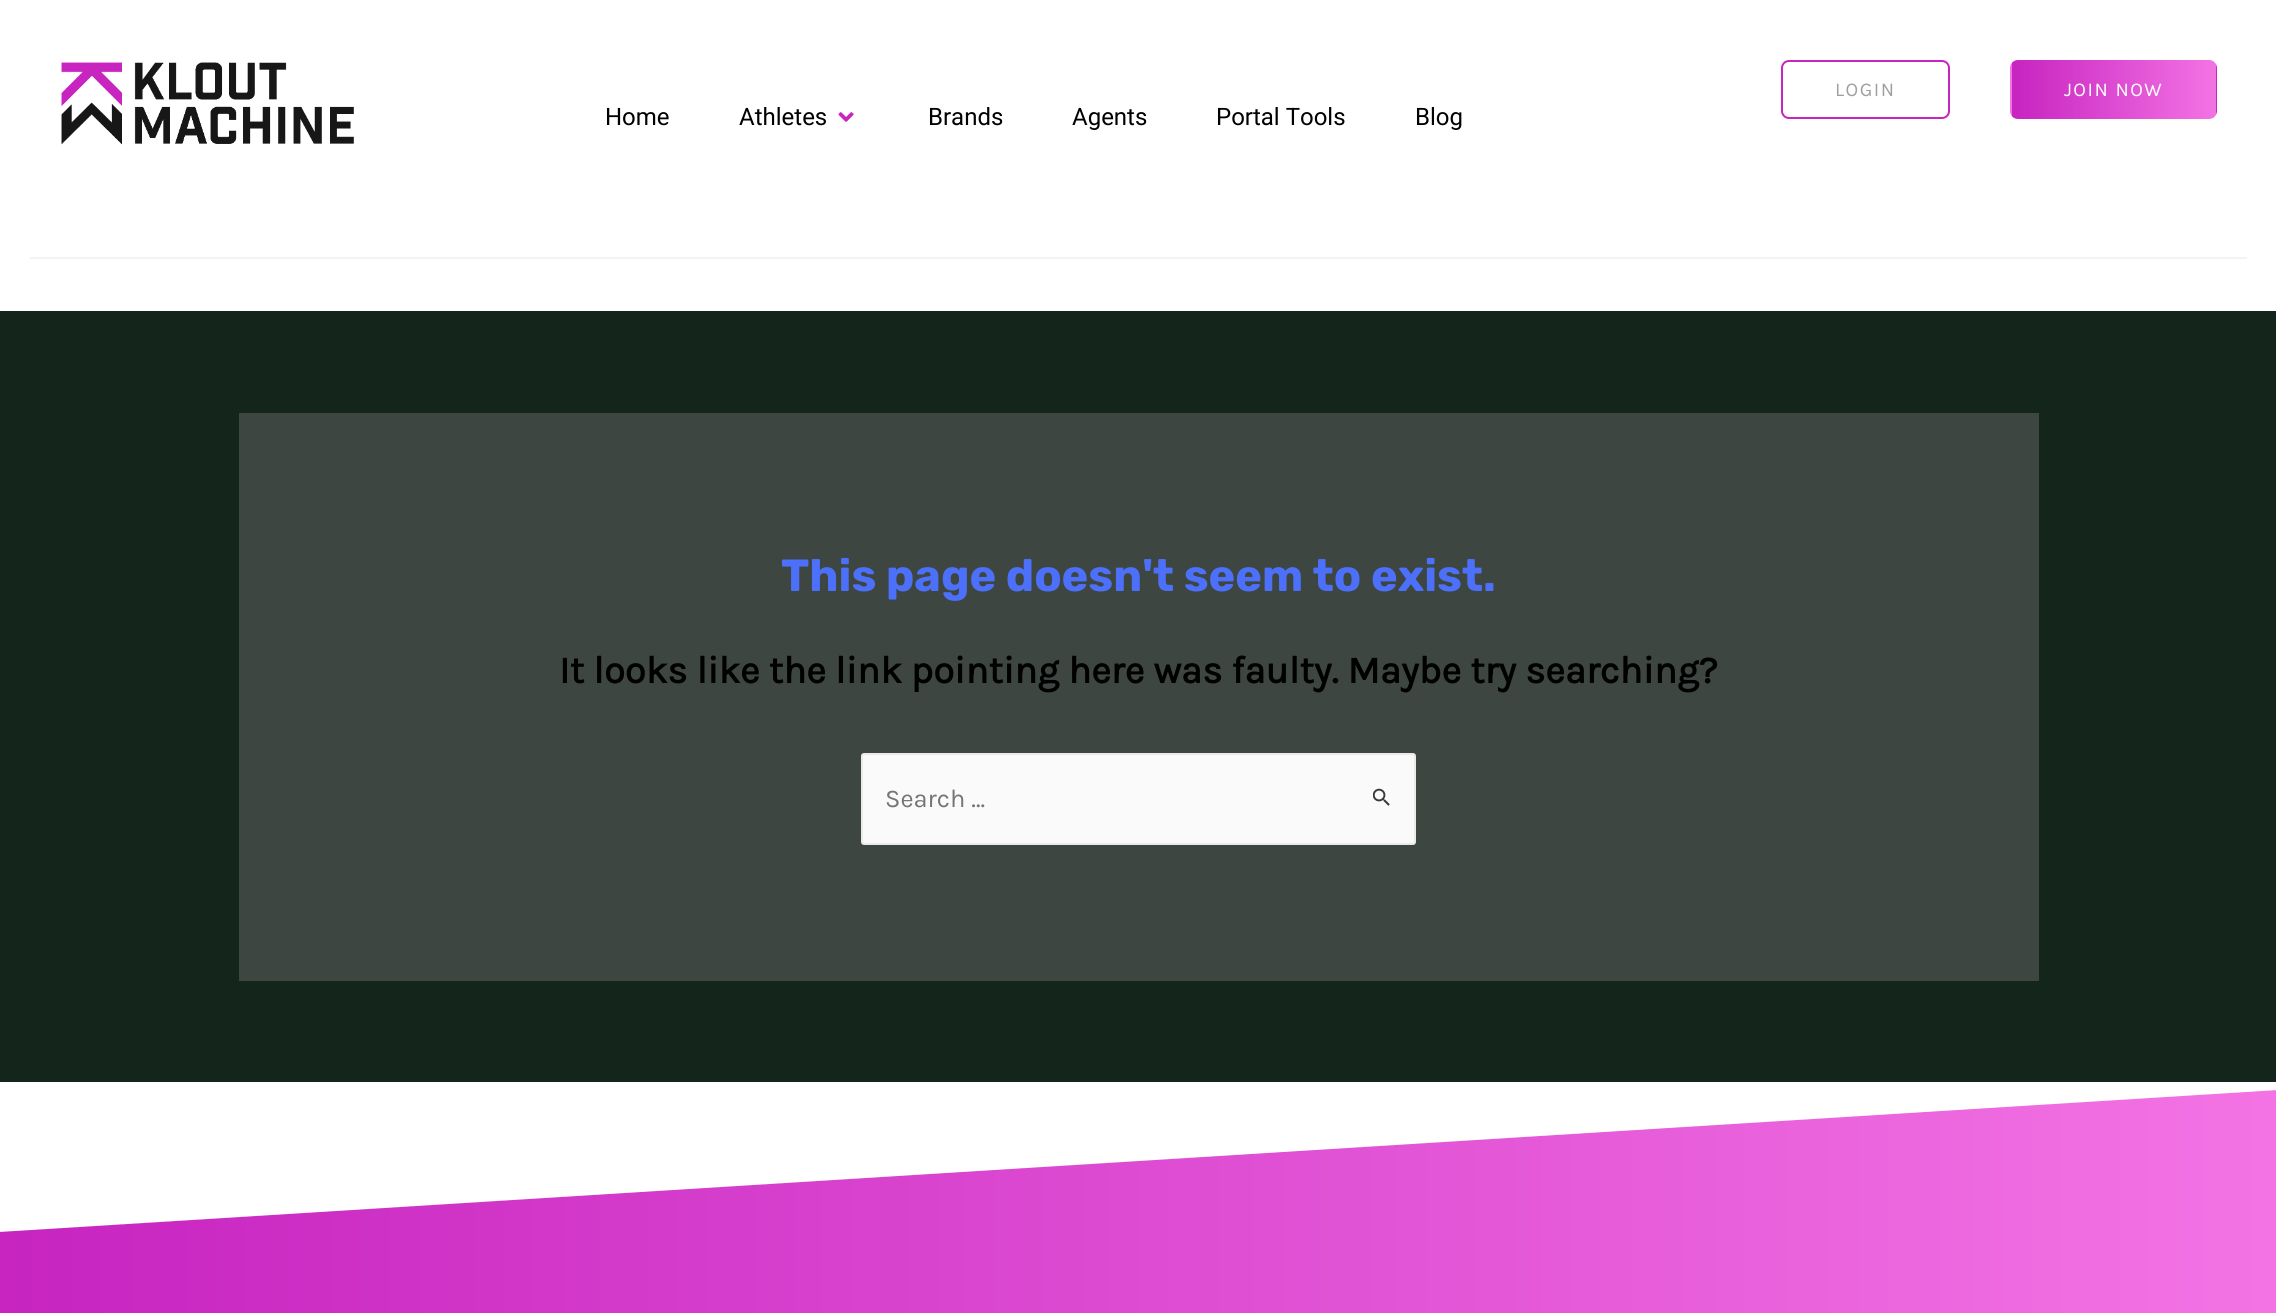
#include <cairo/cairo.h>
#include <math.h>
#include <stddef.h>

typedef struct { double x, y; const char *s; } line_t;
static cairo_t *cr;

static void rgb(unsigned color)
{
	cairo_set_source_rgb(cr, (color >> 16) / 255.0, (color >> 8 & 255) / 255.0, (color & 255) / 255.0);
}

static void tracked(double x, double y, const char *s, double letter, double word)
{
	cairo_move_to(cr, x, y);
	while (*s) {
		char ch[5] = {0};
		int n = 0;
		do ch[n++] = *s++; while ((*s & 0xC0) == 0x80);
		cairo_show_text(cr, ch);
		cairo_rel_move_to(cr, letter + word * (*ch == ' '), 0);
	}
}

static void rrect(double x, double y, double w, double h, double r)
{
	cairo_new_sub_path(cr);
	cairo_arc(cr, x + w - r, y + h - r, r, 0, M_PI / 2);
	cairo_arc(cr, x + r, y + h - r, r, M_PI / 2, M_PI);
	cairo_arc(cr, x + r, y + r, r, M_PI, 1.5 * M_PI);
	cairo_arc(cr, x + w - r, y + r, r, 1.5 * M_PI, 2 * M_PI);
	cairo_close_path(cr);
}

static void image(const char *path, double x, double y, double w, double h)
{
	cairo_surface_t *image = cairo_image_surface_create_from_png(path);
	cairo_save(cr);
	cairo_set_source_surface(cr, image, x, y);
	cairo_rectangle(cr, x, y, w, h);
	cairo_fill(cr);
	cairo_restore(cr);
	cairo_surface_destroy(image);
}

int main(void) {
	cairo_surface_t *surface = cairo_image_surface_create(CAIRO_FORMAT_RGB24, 2276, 1313);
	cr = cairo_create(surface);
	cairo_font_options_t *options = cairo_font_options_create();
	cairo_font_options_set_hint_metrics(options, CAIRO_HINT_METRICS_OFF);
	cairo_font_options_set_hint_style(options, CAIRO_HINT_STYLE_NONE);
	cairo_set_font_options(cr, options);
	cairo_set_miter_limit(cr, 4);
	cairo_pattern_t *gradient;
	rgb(0x14261c);
	cairo_paint(cr);
	rgb(0xffffff);
	cairo_rectangle(cr, 0, 0, 2276, 311);
	cairo_fill(cr);
	image("img/1.png", 61, 62, 293, 83);
	rrect(1782, 61, 167, 57, 7);
	rgb(0xc724c0);
	cairo_stroke(cr);
	cairo_save(cr);
	rrect(2010, 60, 207, 59, 8);
	cairo_clip(cr);
	gradient = cairo_pattern_create_linear(1808, 89, 2012, 89);
	cairo_pattern_add_color_stop_rgba(gradient, 0, 0.78, 0.141, 0.753, 1);
	cairo_pattern_add_color_stop_rgba(gradient, 1, 0.953, 0.451, 0.894, 1);
	cairo_set_source(cr, gradient);
	cairo_pattern_destroy(gradient);
	cairo_rectangle(cr, 2010, 60, 2, 59);
	cairo_fill(cr);
	gradient = cairo_pattern_create_linear(2012, 89, 2216, 89);
	cairo_pattern_add_color_stop_rgba(gradient, 0, 0.78, 0.141, 0.753, 1);
	cairo_pattern_add_color_stop_rgba(gradient, 1, 0.953, 0.451, 0.894, 1);
	cairo_set_source(cr, gradient);
	cairo_pattern_destroy(gradient);
	cairo_rectangle(cr, 2012, 60, 204, 59);
	cairo_fill(cr);
	gradient = cairo_pattern_create_linear(2216, 89, 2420, 89);
	cairo_pattern_add_color_stop_rgba(gradient, 0, 0.78, 0.141, 0.753, 1);
	cairo_pattern_add_color_stop_rgba(gradient, 1, 0.953, 0.451, 0.894, 1);
	cairo_set_source(cr, gradient);
	cairo_pattern_destroy(gradient);
	cairo_rectangle(cr, 2216, 60, 1, 59);
	cairo_fill(cr);
	cairo_restore(cr);
	image("img/2.png", 838, 112, 16, 10);
	rgb(0xf3f3f3);
	cairo_rectangle(cr, 30, 257, 2217, 2);
	cairo_fill(cr);
	rgb(0x3d4641);
	cairo_rectangle(cr, 239, 413, 1800, 568);
	cairo_fill(cr);
	rgb(0xfafafa);
	rrect(862, 754, 553, 90, 2);
	cairo_fill_preserve(cr);
	rgb(0xeaeaea);
	cairo_stroke(cr);
	image("img/3.png", 1373, 788, 17, 18);
	gradient = cairo_pattern_create_linear(0, 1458, 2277, 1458);
	cairo_pattern_add_color_stop_rgba(gradient, 0, 0.78, 0.141, 0.753, 1);
	cairo_pattern_add_color_stop_rgba(gradient, 1, 0.953, 0.451, 0.894, 1);
	cairo_set_source(cr, gradient);
	cairo_pattern_destroy(gradient);
	cairo_rectangle(cr, 0, 1090, 2276, 223);
	cairo_fill(cr);
	rgb(0xffffff);
	cairo_new_path(cr);
	cairo_move_to(cr, 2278, 1090);
	cairo_line_to(cr, 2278, 1082);
	cairo_line_to(cr, -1, 1082);
	cairo_line_to(cr, -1, 1232);
	cairo_close_path(cr);
	cairo_fill(cr);
	cairo_select_font_face(cr, "Karla", CAIRO_FONT_SLANT_NORMAL, CAIRO_FONT_WEIGHT_NORMAL);
	cairo_set_font_size(cr, 19.5);
	rgb(0x9f9f9f);
	tracked(1835, 96, "LOGIN", 1.5, 0);
	rgb(0xffffff);
	tracked(2064, 96, "JOIN NOW", 1.5, 0);
	cairo_select_font_face(cr, "Roboto", CAIRO_FONT_SLANT_NORMAL, CAIRO_FONT_WEIGHT_NORMAL);
	cairo_set_font_size(cr, 24);
	rgb(0x000000);
	{
		static const line_t items[] = {
			{605, 125, "Home"},
			{739, 125, "Athletes"},
			{928, 125, "Brands"},
			{1072, 125, "Agents"},
			{1216, 125, "Portal Tools"},
			{1415, 125, "Blog"},
		};
		for (size_t i = 0; i < sizeof items / sizeof *items; i++) {
			cairo_move_to(cr, items[i].x, items[i].y);
			cairo_show_text(cr, items[i].s);
		}
	}
	cairo_select_font_face(cr, "Rubik Light", CAIRO_FONT_SLANT_NORMAL, CAIRO_FONT_WEIGHT_NORMAL);
	cairo_set_font_size(cr, 45);
	rgb(0x4d70fa);
	cairo_move_to(cr, 781, 591);
	cairo_show_text(cr, "This page doesn't seem to exist.");
	cairo_select_font_face(cr, "Karla", CAIRO_FONT_SLANT_NORMAL, CAIRO_FONT_WEIGHT_BOLD);
	cairo_set_font_size(cr, 38.25);
	rgb(0x000000);
	cairo_move_to(cr, 559, 683);
	cairo_show_text(cr, "It looks like the link pointing here was faulty. Maybe try searching?");
	cairo_select_font_face(cr, "Karla", CAIRO_FONT_SLANT_NORMAL, CAIRO_FONT_WEIGHT_NORMAL);
	cairo_set_font_size(cr, 25.5);
	rgb(0x757575);
	cairo_move_to(cr, 885, 807);
	cairo_show_text(cr, "Search …");
	cairo_surface_write_to_png(surface, "page.png");
	cairo_font_options_destroy(options);
	cairo_destroy(cr);
	cairo_surface_destroy(surface);
	return 0;
}
